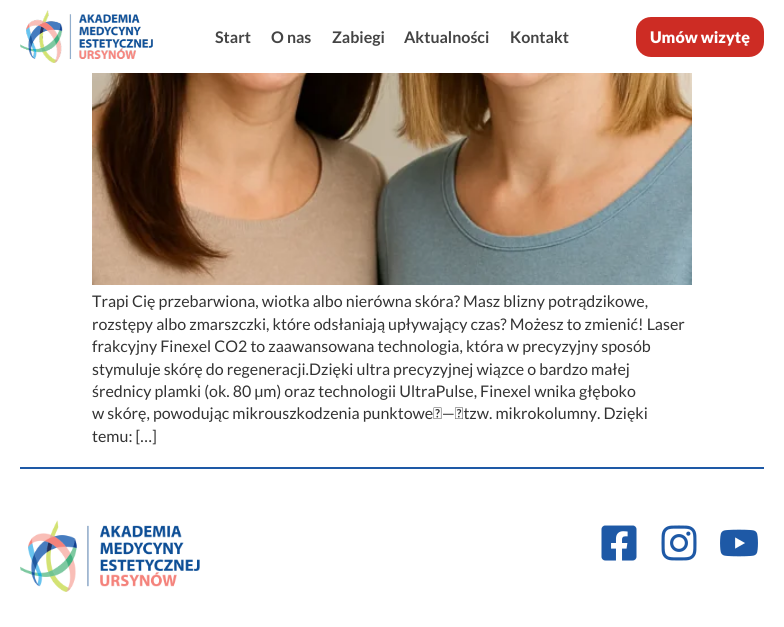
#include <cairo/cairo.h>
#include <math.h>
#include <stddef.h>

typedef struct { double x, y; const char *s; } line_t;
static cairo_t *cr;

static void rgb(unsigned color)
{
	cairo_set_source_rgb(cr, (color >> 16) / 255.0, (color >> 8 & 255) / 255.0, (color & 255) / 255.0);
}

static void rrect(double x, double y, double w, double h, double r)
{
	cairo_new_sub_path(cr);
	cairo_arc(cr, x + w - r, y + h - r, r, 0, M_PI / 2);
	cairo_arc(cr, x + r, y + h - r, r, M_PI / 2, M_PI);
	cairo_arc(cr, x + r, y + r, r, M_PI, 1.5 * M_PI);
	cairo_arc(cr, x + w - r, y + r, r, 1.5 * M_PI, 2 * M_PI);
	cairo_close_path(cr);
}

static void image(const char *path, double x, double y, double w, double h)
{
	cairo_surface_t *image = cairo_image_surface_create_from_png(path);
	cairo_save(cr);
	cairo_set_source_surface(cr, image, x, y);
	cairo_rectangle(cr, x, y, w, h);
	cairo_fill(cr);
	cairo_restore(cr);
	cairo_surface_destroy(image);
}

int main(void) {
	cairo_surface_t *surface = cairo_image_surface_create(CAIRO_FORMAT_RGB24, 784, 627);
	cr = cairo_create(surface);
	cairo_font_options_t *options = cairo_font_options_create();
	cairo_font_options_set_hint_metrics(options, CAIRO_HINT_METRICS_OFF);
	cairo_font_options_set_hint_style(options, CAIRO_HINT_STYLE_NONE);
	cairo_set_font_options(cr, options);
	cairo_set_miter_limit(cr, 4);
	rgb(0xffffff);
	cairo_paint(cr);
	image("img/1.png", 20, 10, 133, 53);
	rgb(0xcd2c24);
	rrect(637, 18, 126, 38, 14);
	cairo_fill_preserve(cr);
	cairo_stroke(cr);
	image("img/2.png", 92, 73, 600, 212);
	rgb(0x1e59a6);
	cairo_rectangle(cr, 20, 467, 744, 2);
	cairo_fill(cr);
	image("img/3.png", 20, 520, 180, 72);
	image("img/4.png", 601, 525, 36, 36);
	image("img/5.png", 661, 525, 36, 36);
	image("img/6.png", 720, 529, 38, 28);
	cairo_select_font_face(cr, "Lato", CAIRO_FONT_SLANT_NORMAL, CAIRO_FONT_WEIGHT_BOLD);
	cairo_set_font_size(cr, 16);
	rgb(0x444444);
	{
		static const line_t items[] = {
			{215, 43, "Start"},
			{271, 43, "O nas"},
			{332, 43, "Zabiegi"},
			{404, 43, "Aktualności"},
			{510, 43, "Kontakt"},
		};
		for (size_t i = 0; i < sizeof items / sizeof *items; i++) {
			cairo_move_to(cr, items[i].x, items[i].y);
			cairo_show_text(cr, items[i].s);
		}
	}
	cairo_select_font_face(cr, "Lato Black", CAIRO_FONT_SLANT_NORMAL, CAIRO_FONT_WEIGHT_NORMAL);
	rgb(0xffffff);
	cairo_move_to(cr, 650, 43);
	cairo_show_text(cr, "Umów wizytę");
	cairo_select_font_face(cr, "Lato", CAIRO_FONT_SLANT_NORMAL, CAIRO_FONT_WEIGHT_NORMAL);
	rgb(0x333333);
	{
		static const line_t items[] = {
			{92, 307, "Trapi Cię przebarwiona, wiotka albo nierówna skóra? Masz blizny potrądzikowe,"},
			{92, 330, "rozstępy albo zmarszczki, które odsłaniają upływający czas? Możesz to zmienić! Laser"},
			{92, 352, "frakcyjny Finexel CO2 to zaawansowana technologia, która w precyzyjny sposób"},
			{92, 375, "stymuluje skórę do regeneracji.Dzięki ultra precyzyjnej wiązce o bardzo małej"},
			{92, 397, "średnicy plamki (ok. 80 µm) oraz technologii UltraPulse, Finexel wnika głęboko"},
			{92, 419, "w skórę, powodując mikrouszkodzenia punktowe — tzw. mikrokolumny. Dzięki"},
			{92, 442, "temu: […]"},
		};
		for (size_t i = 0; i < sizeof items / sizeof *items; i++) {
			cairo_move_to(cr, items[i].x, items[i].y);
			cairo_show_text(cr, items[i].s);
		}
	}
	cairo_surface_write_to_png(surface, "page.png");
	cairo_font_options_destroy(options);
	cairo_destroy(cr);
	cairo_surface_destroy(surface);
	return 0;
}
